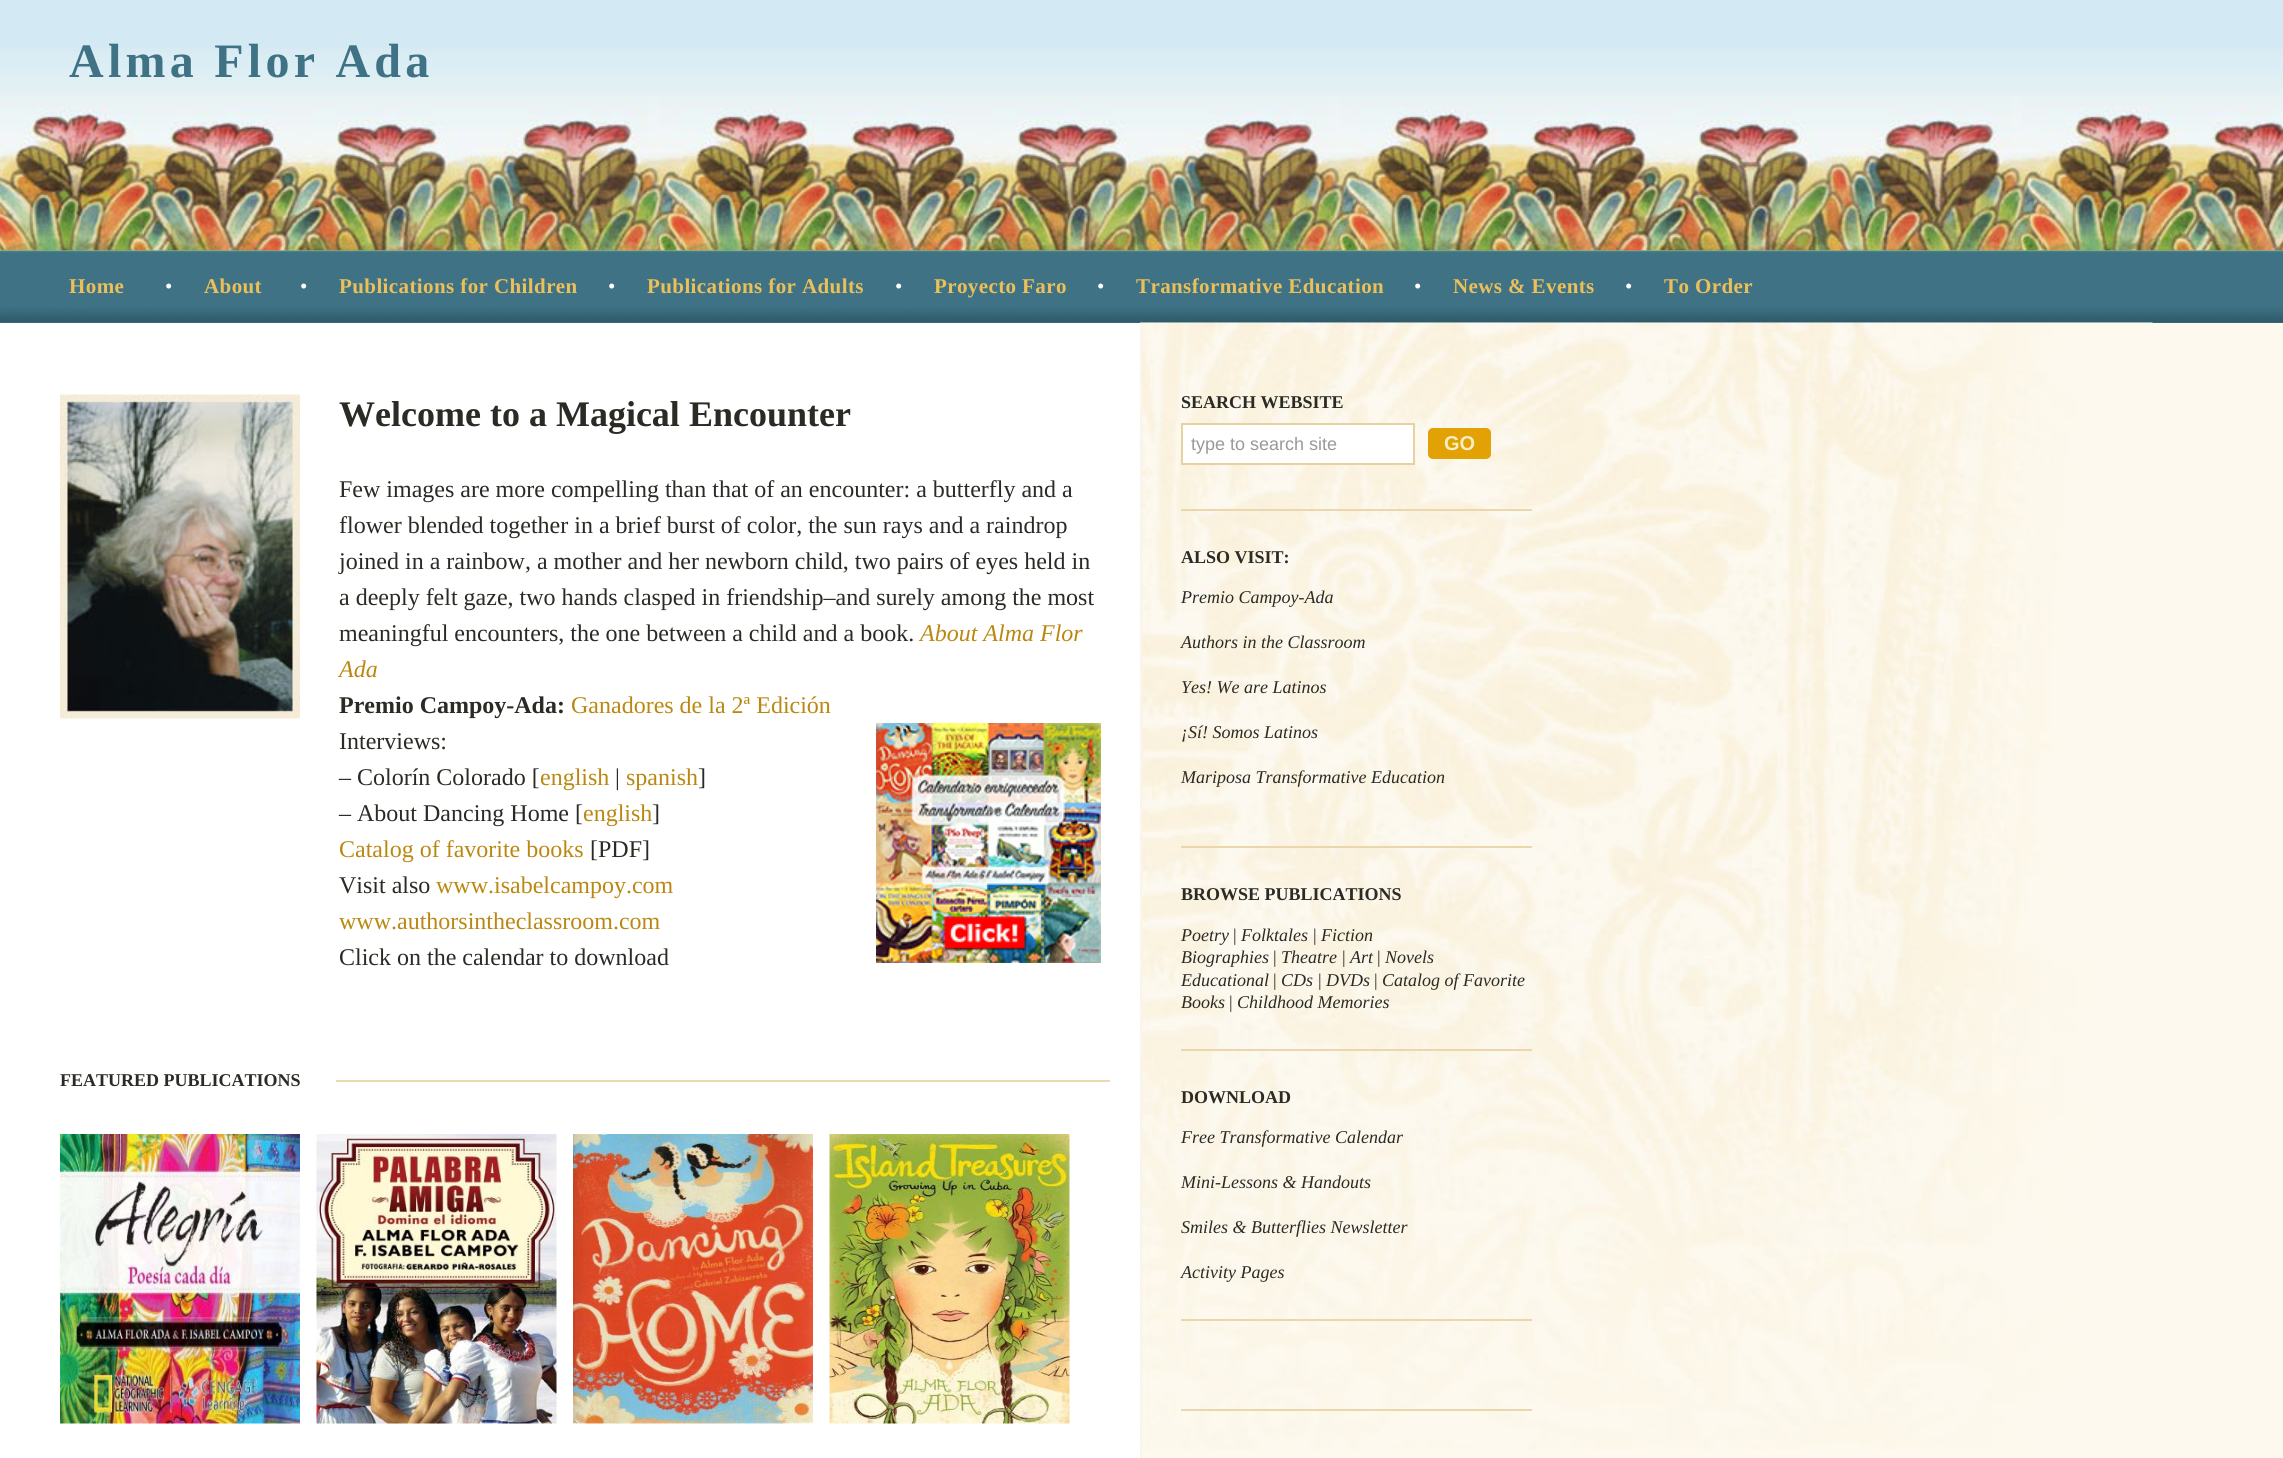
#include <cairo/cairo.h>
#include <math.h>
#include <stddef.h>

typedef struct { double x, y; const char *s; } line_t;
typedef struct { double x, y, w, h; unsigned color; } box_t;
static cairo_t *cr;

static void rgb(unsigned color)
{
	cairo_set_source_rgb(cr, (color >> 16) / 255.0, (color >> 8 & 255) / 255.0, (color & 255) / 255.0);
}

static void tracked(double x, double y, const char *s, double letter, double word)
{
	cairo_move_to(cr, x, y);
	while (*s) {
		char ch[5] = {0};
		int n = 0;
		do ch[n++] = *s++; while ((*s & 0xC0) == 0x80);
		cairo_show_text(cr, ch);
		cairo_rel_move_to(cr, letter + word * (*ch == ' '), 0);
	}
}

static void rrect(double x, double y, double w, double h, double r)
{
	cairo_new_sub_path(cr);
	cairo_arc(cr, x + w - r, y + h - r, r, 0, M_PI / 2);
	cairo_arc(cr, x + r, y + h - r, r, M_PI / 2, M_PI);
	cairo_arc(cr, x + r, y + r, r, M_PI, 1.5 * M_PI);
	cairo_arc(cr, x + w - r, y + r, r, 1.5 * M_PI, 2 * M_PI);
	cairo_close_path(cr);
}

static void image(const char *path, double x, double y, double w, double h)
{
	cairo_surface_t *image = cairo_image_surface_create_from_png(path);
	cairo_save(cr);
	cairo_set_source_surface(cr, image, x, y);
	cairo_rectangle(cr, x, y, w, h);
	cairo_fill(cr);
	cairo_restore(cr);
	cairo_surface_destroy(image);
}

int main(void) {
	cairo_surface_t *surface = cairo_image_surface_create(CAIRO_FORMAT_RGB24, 2283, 1458);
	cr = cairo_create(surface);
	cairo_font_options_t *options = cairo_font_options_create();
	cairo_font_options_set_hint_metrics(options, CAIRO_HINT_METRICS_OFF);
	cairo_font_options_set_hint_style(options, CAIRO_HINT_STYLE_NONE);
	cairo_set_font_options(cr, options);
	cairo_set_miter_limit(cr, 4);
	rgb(0xfdf9ee);
	cairo_paint(cr);
	rgb(0xd3e9f3);
	cairo_rectangle(cr, 0, 0, 2283, 251);
	cairo_fill(cr);
	image("img/1.png", 0, 48, 2283, 203);
	rgb(0x3f7285);
	cairo_rectangle(cr, 0, 322, 2283, 1);
	cairo_fill(cr);
	image("img/2.png", 0, 250, 2283, 73);
	image("img/3.png", 1140, 322, 1013, 1128);
	rgb(0xffffff);
	cairo_rectangle(cr, 0, 323, 1140, 1135);
	cairo_fill(cr);
	image("img/4.png", 60, 394, 240, 325);
	image("img/5.png", 876, 723, 225, 240);
	rgb(0xebd9b2);
	cairo_rectangle(cr, 336, 1080, 774, 2);
	cairo_fill(cr);
	image("img/6.png", 60, 1134, 240, 290);
	image("img/7.png", 316, 1134, 241, 290);
	image("img/8.png", 573, 1134, 240, 290);
	image("img/9.png", 829, 1134, 241, 290);
	rgb(0xfaf5eb);
	cairo_rectangle(cr, 1140, 323, 2, 1135);
	cairo_fill(cr);
	rgb(0xead7ab);
	cairo_rectangle(cr, 1181, 509, 351, 2);
	cairo_fill(cr);
	rgb(0xffffff);
	cairo_rectangle(cr, 1182, 424, 232, 40);
	cairo_fill_preserve(cr);
	rgb(0xe6d1a1);
	cairo_stroke(cr);
	rgb(0xe2a104);
	rrect(1428, 428, 63, 31, 5);
	cairo_fill(cr);
	{
		static const box_t items[] = {
			{1181, 846, 351, 2, 0xead7ab},
			{1181, 1049, 351, 2, 0xead7ab},
			{1181, 1319, 351, 2, 0xead7ab},
			{1181, 1409, 351, 2, 0xead7ab},
		};
		for (size_t i = 0; i < sizeof items / sizeof *items; i++) {
			rgb(items[i].color);
			cairo_rectangle(cr, items[i].x, items[i].y, items[i].w, items[i].h);
			cairo_fill(cr);
		}
	}
	cairo_select_font_face(cr, "Liberation Serif", CAIRO_FONT_SLANT_NORMAL, CAIRO_FONT_WEIGHT_BOLD);
	cairo_set_font_size(cr, 48);
	rgb(0x3f7285);
	tracked(69, 77, "Alma Flor Ada", 4.25, 0);
	cairo_set_font_size(cr, 21);
	rgb(0xebc059);
	tracked(69, 293, "Home", 0.4, 0);
	cairo_select_font_face(cr, "Liberation Serif", CAIRO_FONT_SLANT_NORMAL, CAIRO_FONT_WEIGHT_NORMAL);
	rgb(0xffffff);
	tracked(165, 293, "•", 0.4, 0);
	cairo_select_font_face(cr, "Liberation Serif", CAIRO_FONT_SLANT_NORMAL, CAIRO_FONT_WEIGHT_BOLD);
	rgb(0xebc059);
	tracked(204, 293, "About", 0.4, 0);
	cairo_select_font_face(cr, "Liberation Serif", CAIRO_FONT_SLANT_NORMAL, CAIRO_FONT_WEIGHT_NORMAL);
	rgb(0xffffff);
	tracked(300, 293, "•", 0.4, 0);
	cairo_select_font_face(cr, "Liberation Serif", CAIRO_FONT_SLANT_NORMAL, CAIRO_FONT_WEIGHT_BOLD);
	rgb(0xebc059);
	tracked(339, 293, "Publications for Children", 0.4, 0);
	cairo_select_font_face(cr, "Liberation Serif", CAIRO_FONT_SLANT_NORMAL, CAIRO_FONT_WEIGHT_NORMAL);
	rgb(0xffffff);
	tracked(608, 293, "•", 0.4, 0);
	cairo_select_font_face(cr, "Liberation Serif", CAIRO_FONT_SLANT_NORMAL, CAIRO_FONT_WEIGHT_BOLD);
	rgb(0xebc059);
	tracked(647, 293, "Publications for Adults", 0.4, 0);
	cairo_select_font_face(cr, "Liberation Serif", CAIRO_FONT_SLANT_NORMAL, CAIRO_FONT_WEIGHT_NORMAL);
	rgb(0xffffff);
	tracked(895, 293, "•", 0.4, 0);
	cairo_select_font_face(cr, "Liberation Serif", CAIRO_FONT_SLANT_NORMAL, CAIRO_FONT_WEIGHT_BOLD);
	rgb(0xebc059);
	tracked(934, 293, "Proyecto Faro", 0.4, 0);
	cairo_select_font_face(cr, "Liberation Serif", CAIRO_FONT_SLANT_NORMAL, CAIRO_FONT_WEIGHT_NORMAL);
	rgb(0xffffff);
	tracked(1097, 293, "•", 0.4, 0);
	cairo_select_font_face(cr, "Liberation Serif", CAIRO_FONT_SLANT_NORMAL, CAIRO_FONT_WEIGHT_BOLD);
	rgb(0xebc059);
	tracked(1136, 293, "Transformative Education", 0.4, 0);
	cairo_select_font_face(cr, "Liberation Serif", CAIRO_FONT_SLANT_NORMAL, CAIRO_FONT_WEIGHT_NORMAL);
	rgb(0xffffff);
	tracked(1414, 293, "•", 0.4, 0);
	cairo_select_font_face(cr, "Liberation Serif", CAIRO_FONT_SLANT_NORMAL, CAIRO_FONT_WEIGHT_BOLD);
	rgb(0xebc059);
	tracked(1453, 293, "News & Events", 0.4, 0);
	cairo_select_font_face(cr, "Liberation Serif", CAIRO_FONT_SLANT_NORMAL, CAIRO_FONT_WEIGHT_NORMAL);
	rgb(0xffffff);
	tracked(1625, 293, "•", 0.4, 0);
	cairo_select_font_face(cr, "Liberation Serif", CAIRO_FONT_SLANT_NORMAL, CAIRO_FONT_WEIGHT_BOLD);
	rgb(0xebc059);
	tracked(1664, 293, "To Order", 0.4, 0);
	cairo_set_font_size(cr, 36);
	rgb(0x2b2a24);
	cairo_move_to(cr, 339, 426);
	cairo_show_text(cr, "Welcome to a Magical Encounter");
	cairo_select_font_face(cr, "Liberation Serif", CAIRO_FONT_SLANT_NORMAL, CAIRO_FONT_WEIGHT_NORMAL);
	cairo_set_font_size(cr, 24);
	{
		static const line_t items[] = {
			{339, 497, "Few images are more compelling than that of an encounter: a butterfly and a"},
			{339, 533, "flower blended together in a brief burst of color, the sun rays and a raindrop"},
			{339, 569, "joined in a rainbow, a mother and her newborn child, two pairs of eyes held in"},
			{339, 605, "a deeply felt gaze, two hands clasped in friendship–and surely among the most"},
			{339, 641, "meaningful encounters, the one between a child and a book."},
		};
		for (size_t i = 0; i < sizeof items / sizeof *items; i++) {
			cairo_move_to(cr, items[i].x, items[i].y);
			cairo_show_text(cr, items[i].s);
		}
	}
	cairo_select_font_face(cr, "Liberation Serif", CAIRO_FONT_SLANT_ITALIC, CAIRO_FONT_WEIGHT_NORMAL);
	rgb(0xba8811);
	cairo_move_to(cr, 920, 641);
	cairo_show_text(cr, "About Alma Flor");
	cairo_move_to(cr, 339, 677);
	cairo_show_text(cr, "Ada");
	cairo_select_font_face(cr, "Liberation Serif", CAIRO_FONT_SLANT_NORMAL, CAIRO_FONT_WEIGHT_BOLD);
	rgb(0x2b2a24);
	cairo_move_to(cr, 339, 713);
	cairo_show_text(cr, "Premio Campoy-Ada:");
	cairo_select_font_face(cr, "Liberation Serif", CAIRO_FONT_SLANT_NORMAL, CAIRO_FONT_WEIGHT_NORMAL);
	rgb(0xba8811);
	cairo_move_to(cr, 571, 713);
	cairo_show_text(cr, "Ganadores de la 2ª Edición");
	rgb(0x2b2a24);
	cairo_move_to(cr, 339, 749);
	cairo_show_text(cr, "Interviews:");
	cairo_move_to(cr, 339, 785);
	cairo_show_text(cr, "– Colorín Colorado [");
	rgb(0xba8811);
	cairo_move_to(cr, 540, 785);
	cairo_show_text(cr, "english");
	rgb(0x2b2a24);
	cairo_move_to(cr, 615, 785);
	cairo_show_text(cr, "|");
	rgb(0xba8811);
	cairo_move_to(cr, 626, 785);
	cairo_show_text(cr, "spanish");
	rgb(0x2b2a24);
	cairo_move_to(cr, 698, 785);
	cairo_show_text(cr, "]");
	cairo_move_to(cr, 339, 821);
	cairo_show_text(cr, "– About Dancing Home [");
	rgb(0xba8811);
	cairo_move_to(cr, 583, 821);
	cairo_show_text(cr, "english");
	rgb(0x2b2a24);
	cairo_move_to(cr, 652, 821);
	cairo_show_text(cr, "]");
	rgb(0xba8811);
	cairo_move_to(cr, 339, 857);
	cairo_show_text(cr, "Catalog of favorite books");
	rgb(0x2b2a24);
	cairo_move_to(cr, 590, 857);
	cairo_show_text(cr, "[PDF]");
	cairo_move_to(cr, 339, 893);
	cairo_show_text(cr, "Visit also");
	rgb(0xba8811);
	cairo_move_to(cr, 436, 893);
	cairo_show_text(cr, "www.isabelcampoy.com");
	cairo_move_to(cr, 339, 929);
	cairo_show_text(cr, "www.authorsintheclassroom.com");
	rgb(0x2b2a24);
	cairo_move_to(cr, 339, 965);
	cairo_show_text(cr, "Click on the calendar to download");
	cairo_select_font_face(cr, "Liberation Serif", CAIRO_FONT_SLANT_NORMAL, CAIRO_FONT_WEIGHT_BOLD);
	cairo_set_font_size(cr, 18);
	cairo_move_to(cr, 60, 1086);
	cairo_show_text(cr, "FEATURED PUBLICATIONS");
	cairo_move_to(cr, 1181, 408);
	cairo_show_text(cr, "SEARCH WEBSITE");
	cairo_select_font_face(cr, "Liberation Sans", CAIRO_FONT_SLANT_NORMAL, CAIRO_FONT_WEIGHT_NORMAL);
	rgb(0x999999);
	cairo_move_to(cr, 1191, 450);
	cairo_show_text(cr, "type to search site");
	cairo_select_font_face(cr, "Liberation Sans", CAIRO_FONT_SLANT_NORMAL, CAIRO_FONT_WEIGHT_BOLD);
	cairo_set_font_size(cr, 20);
	rgb(0xf7efc0);
	cairo_move_to(cr, 1444, 450);
	cairo_show_text(cr, "GO");
	cairo_select_font_face(cr, "Liberation Serif", CAIRO_FONT_SLANT_NORMAL, CAIRO_FONT_WEIGHT_BOLD);
	cairo_set_font_size(cr, 18);
	rgb(0x2b2a24);
	cairo_move_to(cr, 1181, 563);
	cairo_show_text(cr, "ALSO VISIT:");
	cairo_select_font_face(cr, "Liberation Serif", CAIRO_FONT_SLANT_ITALIC, CAIRO_FONT_WEIGHT_NORMAL);
	{
		static const line_t items[] = {
			{1181, 603, "Premio Campoy-Ada"},
			{1181, 648, "Authors in the Classroom"},
			{1181, 693, "Yes! We are Latinos"},
			{1181, 738, "¡Sí! Somos Latinos"},
			{1181, 783, "Mariposa Transformative Education"},
		};
		for (size_t i = 0; i < sizeof items / sizeof *items; i++) {
			cairo_move_to(cr, items[i].x, items[i].y);
			cairo_show_text(cr, items[i].s);
		}
	}
	cairo_select_font_face(cr, "Liberation Serif", CAIRO_FONT_SLANT_NORMAL, CAIRO_FONT_WEIGHT_BOLD);
	cairo_move_to(cr, 1181, 900);
	cairo_show_text(cr, "BROWSE PUBLICATIONS");
	cairo_select_font_face(cr, "Liberation Serif", CAIRO_FONT_SLANT_ITALIC, CAIRO_FONT_WEIGHT_NORMAL);
	cairo_move_to(cr, 1181, 941);
	cairo_show_text(cr, "Poetry");
	cairo_select_font_face(cr, "Liberation Serif", CAIRO_FONT_SLANT_NORMAL, CAIRO_FONT_WEIGHT_NORMAL);
	cairo_move_to(cr, 1233, 941);
	cairo_show_text(cr, "|");
	cairo_select_font_face(cr, "Liberation Serif", CAIRO_FONT_SLANT_ITALIC, CAIRO_FONT_WEIGHT_NORMAL);
	cairo_move_to(cr, 1241, 941);
	cairo_show_text(cr, "Folktales");
	cairo_select_font_face(cr, "Liberation Serif", CAIRO_FONT_SLANT_NORMAL, CAIRO_FONT_WEIGHT_NORMAL);
	cairo_move_to(cr, 1313, 941);
	cairo_show_text(cr, "|");
	cairo_select_font_face(cr, "Liberation Serif", CAIRO_FONT_SLANT_ITALIC, CAIRO_FONT_WEIGHT_NORMAL);
	cairo_move_to(cr, 1321, 941);
	cairo_show_text(cr, "Fiction");
	cairo_move_to(cr, 1181, 963);
	cairo_show_text(cr, "Biographies");
	cairo_select_font_face(cr, "Liberation Serif", CAIRO_FONT_SLANT_NORMAL, CAIRO_FONT_WEIGHT_NORMAL);
	cairo_move_to(cr, 1273, 963);
	cairo_show_text(cr, "|");
	cairo_select_font_face(cr, "Liberation Serif", CAIRO_FONT_SLANT_ITALIC, CAIRO_FONT_WEIGHT_NORMAL);
	cairo_move_to(cr, 1281, 963);
	cairo_show_text(cr, "Theatre");
	cairo_select_font_face(cr, "Liberation Serif", CAIRO_FONT_SLANT_NORMAL, CAIRO_FONT_WEIGHT_NORMAL);
	cairo_move_to(cr, 1342, 963);
	cairo_show_text(cr, "|");
	cairo_select_font_face(cr, "Liberation Serif", CAIRO_FONT_SLANT_ITALIC, CAIRO_FONT_WEIGHT_NORMAL);
	cairo_move_to(cr, 1350, 963);
	cairo_show_text(cr, "Art");
	cairo_select_font_face(cr, "Liberation Serif", CAIRO_FONT_SLANT_NORMAL, CAIRO_FONT_WEIGHT_NORMAL);
	cairo_move_to(cr, 1377, 963);
	cairo_show_text(cr, "|");
	cairo_select_font_face(cr, "Liberation Serif", CAIRO_FONT_SLANT_ITALIC, CAIRO_FONT_WEIGHT_NORMAL);
	cairo_move_to(cr, 1385, 963);
	cairo_show_text(cr, "Novels");
	cairo_move_to(cr, 1181, 986);
	cairo_show_text(cr, "Educational");
	cairo_select_font_face(cr, "Liberation Serif", CAIRO_FONT_SLANT_NORMAL, CAIRO_FONT_WEIGHT_NORMAL);
	cairo_move_to(cr, 1273, 986);
	cairo_show_text(cr, "|");
	cairo_select_font_face(cr, "Liberation Serif", CAIRO_FONT_SLANT_ITALIC, CAIRO_FONT_WEIGHT_NORMAL);
	cairo_move_to(cr, 1281, 986);
	cairo_show_text(cr, "CDs");
	cairo_select_font_face(cr, "Liberation Serif", CAIRO_FONT_SLANT_NORMAL, CAIRO_FONT_WEIGHT_NORMAL);
	cairo_move_to(cr, 1318, 986);
	cairo_show_text(cr, "|");
	cairo_select_font_face(cr, "Liberation Serif", CAIRO_FONT_SLANT_ITALIC, CAIRO_FONT_WEIGHT_NORMAL);
	cairo_move_to(cr, 1326, 986);
	cairo_show_text(cr, "DVDs");
	cairo_select_font_face(cr, "Liberation Serif", CAIRO_FONT_SLANT_NORMAL, CAIRO_FONT_WEIGHT_NORMAL);
	cairo_move_to(cr, 1374, 986);
	cairo_show_text(cr, "|");
	cairo_select_font_face(cr, "Liberation Serif", CAIRO_FONT_SLANT_ITALIC, CAIRO_FONT_WEIGHT_NORMAL);
	cairo_move_to(cr, 1382, 986);
	cairo_show_text(cr, "Catalog of Favorite");
	cairo_move_to(cr, 1181, 1008);
	cairo_show_text(cr, "Books");
	cairo_select_font_face(cr, "Liberation Serif", CAIRO_FONT_SLANT_NORMAL, CAIRO_FONT_WEIGHT_NORMAL);
	cairo_move_to(cr, 1229, 1008);
	cairo_show_text(cr, "|");
	cairo_select_font_face(cr, "Liberation Serif", CAIRO_FONT_SLANT_ITALIC, CAIRO_FONT_WEIGHT_NORMAL);
	cairo_move_to(cr, 1237, 1008);
	cairo_show_text(cr, "Childhood Memories");
	cairo_select_font_face(cr, "Liberation Serif", CAIRO_FONT_SLANT_NORMAL, CAIRO_FONT_WEIGHT_BOLD);
	cairo_move_to(cr, 1181, 1103);
	cairo_show_text(cr, "DOWNLOAD");
	cairo_select_font_face(cr, "Liberation Serif", CAIRO_FONT_SLANT_ITALIC, CAIRO_FONT_WEIGHT_NORMAL);
	{
		static const line_t items[] = {
			{1181, 1143, "Free Transformative Calendar"},
			{1181, 1188, "Mini-Lessons & Handouts"},
			{1181, 1233, "Smiles & Butterflies Newsletter"},
			{1181, 1278, "Activity Pages"},
		};
		for (size_t i = 0; i < sizeof items / sizeof *items; i++) {
			cairo_move_to(cr, items[i].x, items[i].y);
			cairo_show_text(cr, items[i].s);
		}
	}
	cairo_surface_write_to_png(surface, "page.png");
	cairo_font_options_destroy(options);
	cairo_destroy(cr);
	cairo_surface_destroy(surface);
	return 0;
}
